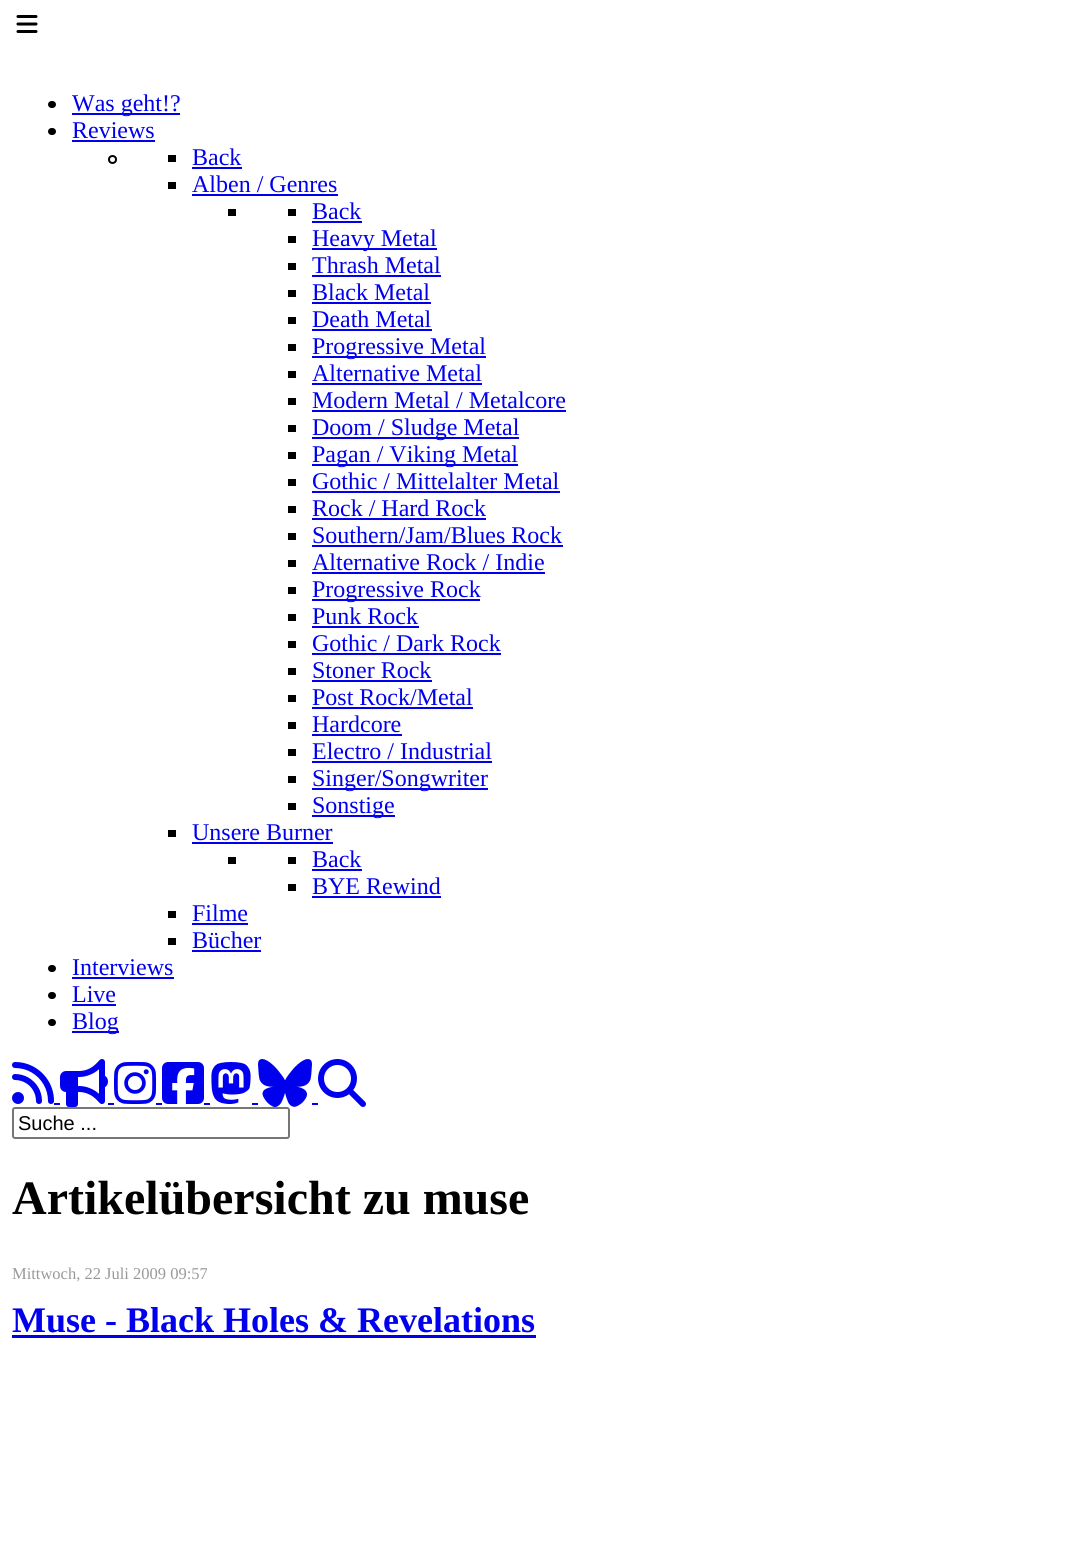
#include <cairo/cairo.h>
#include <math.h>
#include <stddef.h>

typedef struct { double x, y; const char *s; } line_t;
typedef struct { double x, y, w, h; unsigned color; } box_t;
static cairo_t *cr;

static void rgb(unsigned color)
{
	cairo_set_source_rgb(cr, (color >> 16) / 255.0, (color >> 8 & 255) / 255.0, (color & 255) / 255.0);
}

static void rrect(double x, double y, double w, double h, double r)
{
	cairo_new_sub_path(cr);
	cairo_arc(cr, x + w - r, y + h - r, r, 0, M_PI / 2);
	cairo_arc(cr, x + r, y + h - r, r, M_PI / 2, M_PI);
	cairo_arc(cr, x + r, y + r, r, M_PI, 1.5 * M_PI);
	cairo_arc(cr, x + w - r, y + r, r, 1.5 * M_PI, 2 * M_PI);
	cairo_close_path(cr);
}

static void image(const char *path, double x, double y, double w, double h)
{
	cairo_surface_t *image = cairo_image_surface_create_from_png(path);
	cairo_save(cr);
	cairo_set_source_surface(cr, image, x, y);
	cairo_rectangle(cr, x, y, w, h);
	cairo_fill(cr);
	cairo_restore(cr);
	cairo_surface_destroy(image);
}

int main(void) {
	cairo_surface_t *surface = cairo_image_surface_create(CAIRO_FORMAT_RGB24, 1079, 1553);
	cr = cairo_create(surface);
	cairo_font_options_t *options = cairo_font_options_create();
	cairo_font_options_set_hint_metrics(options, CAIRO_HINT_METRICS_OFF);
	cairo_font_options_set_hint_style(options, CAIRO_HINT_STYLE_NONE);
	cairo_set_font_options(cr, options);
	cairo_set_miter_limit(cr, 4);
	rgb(0xffffff);
	cairo_paint(cr);
	image("img/1.png", 16, 15, 22, 18);
	rgb(0x000000);
	rrect(48, 101, 8, 7, 3.5);
	cairo_fill(cr);
	rgb(0x0000ee);
	cairo_rectangle(cr, 72, 113, 108, 2);
	cairo_fill(cr);
	rgb(0x000000);
	rrect(48, 128, 8, 7, 3.5);
	cairo_fill(cr);
	rgb(0x0000ee);
	cairo_rectangle(cr, 72, 140, 83, 2);
	cairo_fill(cr);
	cairo_arc(cr, 112.5, 159.5, 3.5, 0, 2 * M_PI);
	rgb(0x000000);
	cairo_stroke(cr);
	{
		static const box_t items[] = {
			{168, 155, 8, 7, 0x000000},
			{192, 167, 50, 2, 0x0000ee},
			{168, 182, 8, 7, 0x000000},
			{192, 194, 146, 2, 0x0000ee},
			{228, 209, 8, 7, 0x000000},
			{288, 209, 8, 7, 0x000000},
			{312, 221, 50, 2, 0x0000ee},
			{288, 236, 8, 7, 0x000000},
			{312, 248, 125, 2, 0x0000ee},
			{288, 263, 8, 7, 0x000000},
			{312, 275, 129, 2, 0x0000ee},
			{288, 290, 8, 7, 0x000000},
			{312, 302, 119, 2, 0x0000ee},
			{288, 317, 8, 7, 0x000000},
			{312, 329, 120, 2, 0x0000ee},
			{288, 344, 8, 7, 0x000000},
			{312, 356, 174, 2, 0x0000ee},
			{288, 371, 8, 7, 0x000000},
			{312, 383, 170, 2, 0x0000ee},
			{288, 398, 8, 7, 0x000000},
			{312, 410, 254, 2, 0x0000ee},
			{288, 425, 8, 7, 0x000000},
			{312, 437, 207, 2, 0x0000ee},
			{288, 452, 8, 7, 0x000000},
			{312, 464, 206, 2, 0x0000ee},
			{288, 479, 8, 7, 0x000000},
			{312, 491, 248, 2, 0x0000ee},
			{288, 506, 8, 7, 0x000000},
			{312, 518, 174, 2, 0x0000ee},
			{288, 533, 8, 7, 0x000000},
			{312, 545, 251, 2, 0x0000ee},
			{288, 560, 8, 7, 0x000000},
			{312, 572, 233, 2, 0x0000ee},
			{288, 587, 8, 7, 0x000000},
			{312, 599, 168, 2, 0x0000ee},
			{288, 614, 8, 7, 0x000000},
			{312, 626, 107, 2, 0x0000ee},
			{288, 641, 8, 7, 0x000000},
			{312, 653, 189, 2, 0x0000ee},
			{288, 668, 8, 7, 0x000000},
			{312, 680, 120, 2, 0x0000ee},
			{288, 695, 8, 7, 0x000000},
			{312, 707, 161, 2, 0x0000ee},
			{288, 722, 8, 7, 0x000000},
			{312, 734, 90, 2, 0x0000ee},
			{288, 749, 8, 7, 0x000000},
			{312, 761, 180, 2, 0x0000ee},
			{288, 776, 8, 7, 0x000000},
			{312, 788, 176, 2, 0x0000ee},
			{288, 803, 8, 7, 0x000000},
			{312, 815, 83, 2, 0x0000ee},
			{168, 830, 8, 7, 0x000000},
			{192, 842, 141, 2, 0x0000ee},
			{228, 857, 8, 7, 0x000000},
			{288, 857, 8, 7, 0x000000},
			{312, 869, 50, 2, 0x0000ee},
			{288, 884, 8, 7, 0x000000},
			{312, 896, 129, 2, 0x0000ee},
			{168, 911, 8, 7, 0x000000},
			{192, 923, 56, 2, 0x0000ee},
			{168, 938, 8, 7, 0x000000},
			{192, 950, 69, 2, 0x0000ee},
		};
		for (size_t i = 0; i < sizeof items / sizeof *items; i++) {
			rgb(items[i].color);
			cairo_rectangle(cr, items[i].x, items[i].y, items[i].w, items[i].h);
			cairo_fill(cr);
		}
	}
	rgb(0x000000);
	rrect(48, 965, 8, 7, 3.5);
	cairo_fill(cr);
	rgb(0x0000ee);
	cairo_rectangle(cr, 72, 977, 102, 2);
	cairo_fill(cr);
	rgb(0x000000);
	rrect(48, 992, 8, 7, 3.5);
	cairo_fill(cr);
	rgb(0x0000ee);
	cairo_rectangle(cr, 72, 1004, 44, 2);
	cairo_fill(cr);
	rgb(0x000000);
	rrect(48, 1019, 8, 7, 3.5);
	cairo_fill(cr);
	rgb(0x0000ee);
	cairo_rectangle(cr, 72, 1031, 47, 2);
	cairo_fill(cr);
	image("img/2.png", 12, 1062, 42, 42);
	cairo_rectangle(cr, 54, 1103, 6, 2);
	cairo_fill(cr);
	image("img/3.png", 60, 1059, 48, 48);
	cairo_rectangle(cr, 108, 1103, 6, 2);
	cairo_fill(cr);
	image("img/4.png", 114, 1062, 42, 42);
	cairo_rectangle(cr, 156, 1103, 6, 2);
	cairo_fill(cr);
	image("img/5.png", 162, 1062, 42, 42);
	cairo_rectangle(cr, 204, 1103, 6, 2);
	cairo_fill(cr);
	image("img/6.png", 211, 1062, 40, 42);
	cairo_rectangle(cr, 252, 1103, 6, 2);
	cairo_fill(cr);
	image("img/7.png", 258, 1059, 54, 48);
	cairo_rectangle(cr, 312, 1103, 6, 2);
	cairo_fill(cr);
	image("img/8.png", 318, 1059, 48, 48);
	rrect(13, 1108, 276, 30, 2);
	rgb(0x767676);
	cairo_stroke(cr);
	rgb(0x0000ee);
	cairo_rectangle(cr, 12, 1335, 524, 3);
	cairo_fill(cr);
	cairo_select_font_face(cr, "Liberation Serif", CAIRO_FONT_SLANT_NORMAL, CAIRO_FONT_WEIGHT_NORMAL);
	cairo_set_font_size(cr, 24);
	{
		static const line_t items[] = {
			{72, 111, "Was geht!?"},
			{72, 138, "Reviews"},
			{192, 165, "Back"},
			{192, 192, "Alben / Genres"},
			{312, 219, "Back"},
			{312, 246, "Heavy Metal"},
			{312, 273, "Thrash Metal"},
			{312, 300, "Black Metal"},
			{312, 327, "Death Metal"},
			{312, 354, "Progressive Metal"},
			{312, 381, "Alternative Metal"},
			{312, 408, "Modern Metal / Metalcore"},
			{312, 435, "Doom / Sludge Metal"},
			{312, 462, "Pagan / Viking Metal"},
			{312, 489, "Gothic / Mittelalter Metal"},
			{312, 516, "Rock / Hard Rock"},
			{312, 543, "Southern/Jam/Blues Rock"},
			{312, 570, "Alternative Rock / Indie"},
			{312, 597, "Progressive Rock"},
			{312, 624, "Punk Rock"},
			{312, 651, "Gothic / Dark Rock"},
			{312, 678, "Stoner Rock"},
			{312, 705, "Post Rock/Metal"},
			{312, 732, "Hardcore"},
			{312, 759, "Electro / Industrial"},
			{312, 786, "Singer/Songwriter"},
			{312, 813, "Sonstige"},
			{192, 840, "Unsere Burner"},
			{312, 867, "Back"},
			{312, 894, "BYE Rewind"},
			{192, 921, "Filme"},
			{192, 948, "Bücher"},
			{72, 975, "Interviews"},
			{72, 1002, "Live"},
			{72, 1029, "Blog"},
		};
		for (size_t i = 0; i < sizeof items / sizeof *items; i++) {
			cairo_move_to(cr, items[i].x, items[i].y);
			cairo_show_text(cr, items[i].s);
		}
	}
	cairo_select_font_face(cr, "Liberation Sans", CAIRO_FONT_SLANT_NORMAL, CAIRO_FONT_WEIGHT_NORMAL);
	cairo_set_font_size(cr, 20);
	rgb(0x000000);
	cairo_move_to(cr, 18, 1130);
	cairo_show_text(cr, "Suche ...");
	cairo_select_font_face(cr, "Liberation Serif", CAIRO_FONT_SLANT_NORMAL, CAIRO_FONT_WEIGHT_BOLD);
	cairo_set_font_size(cr, 48);
	cairo_move_to(cr, 12, 1214);
	cairo_show_text(cr, "Artikelübersicht zu muse");
	cairo_select_font_face(cr, "Liberation Serif", CAIRO_FONT_SLANT_NORMAL, CAIRO_FONT_WEIGHT_NORMAL);
	cairo_set_font_size(cr, 16.5);
	rgb(0x999999);
	cairo_move_to(cr, 12, 1279);
	cairo_show_text(cr, "Mittwoch, 22 Juli 2009 09:57");
	cairo_select_font_face(cr, "Liberation Serif", CAIRO_FONT_SLANT_NORMAL, CAIRO_FONT_WEIGHT_BOLD);
	cairo_set_font_size(cr, 36);
	rgb(0x0000ee);
	cairo_move_to(cr, 12, 1332);
	cairo_show_text(cr, "Muse - Black Holes & Revelations");
	cairo_surface_write_to_png(surface, "page.png");
	cairo_font_options_destroy(options);
	cairo_destroy(cr);
	cairo_surface_destroy(surface);
	return 0;
}
